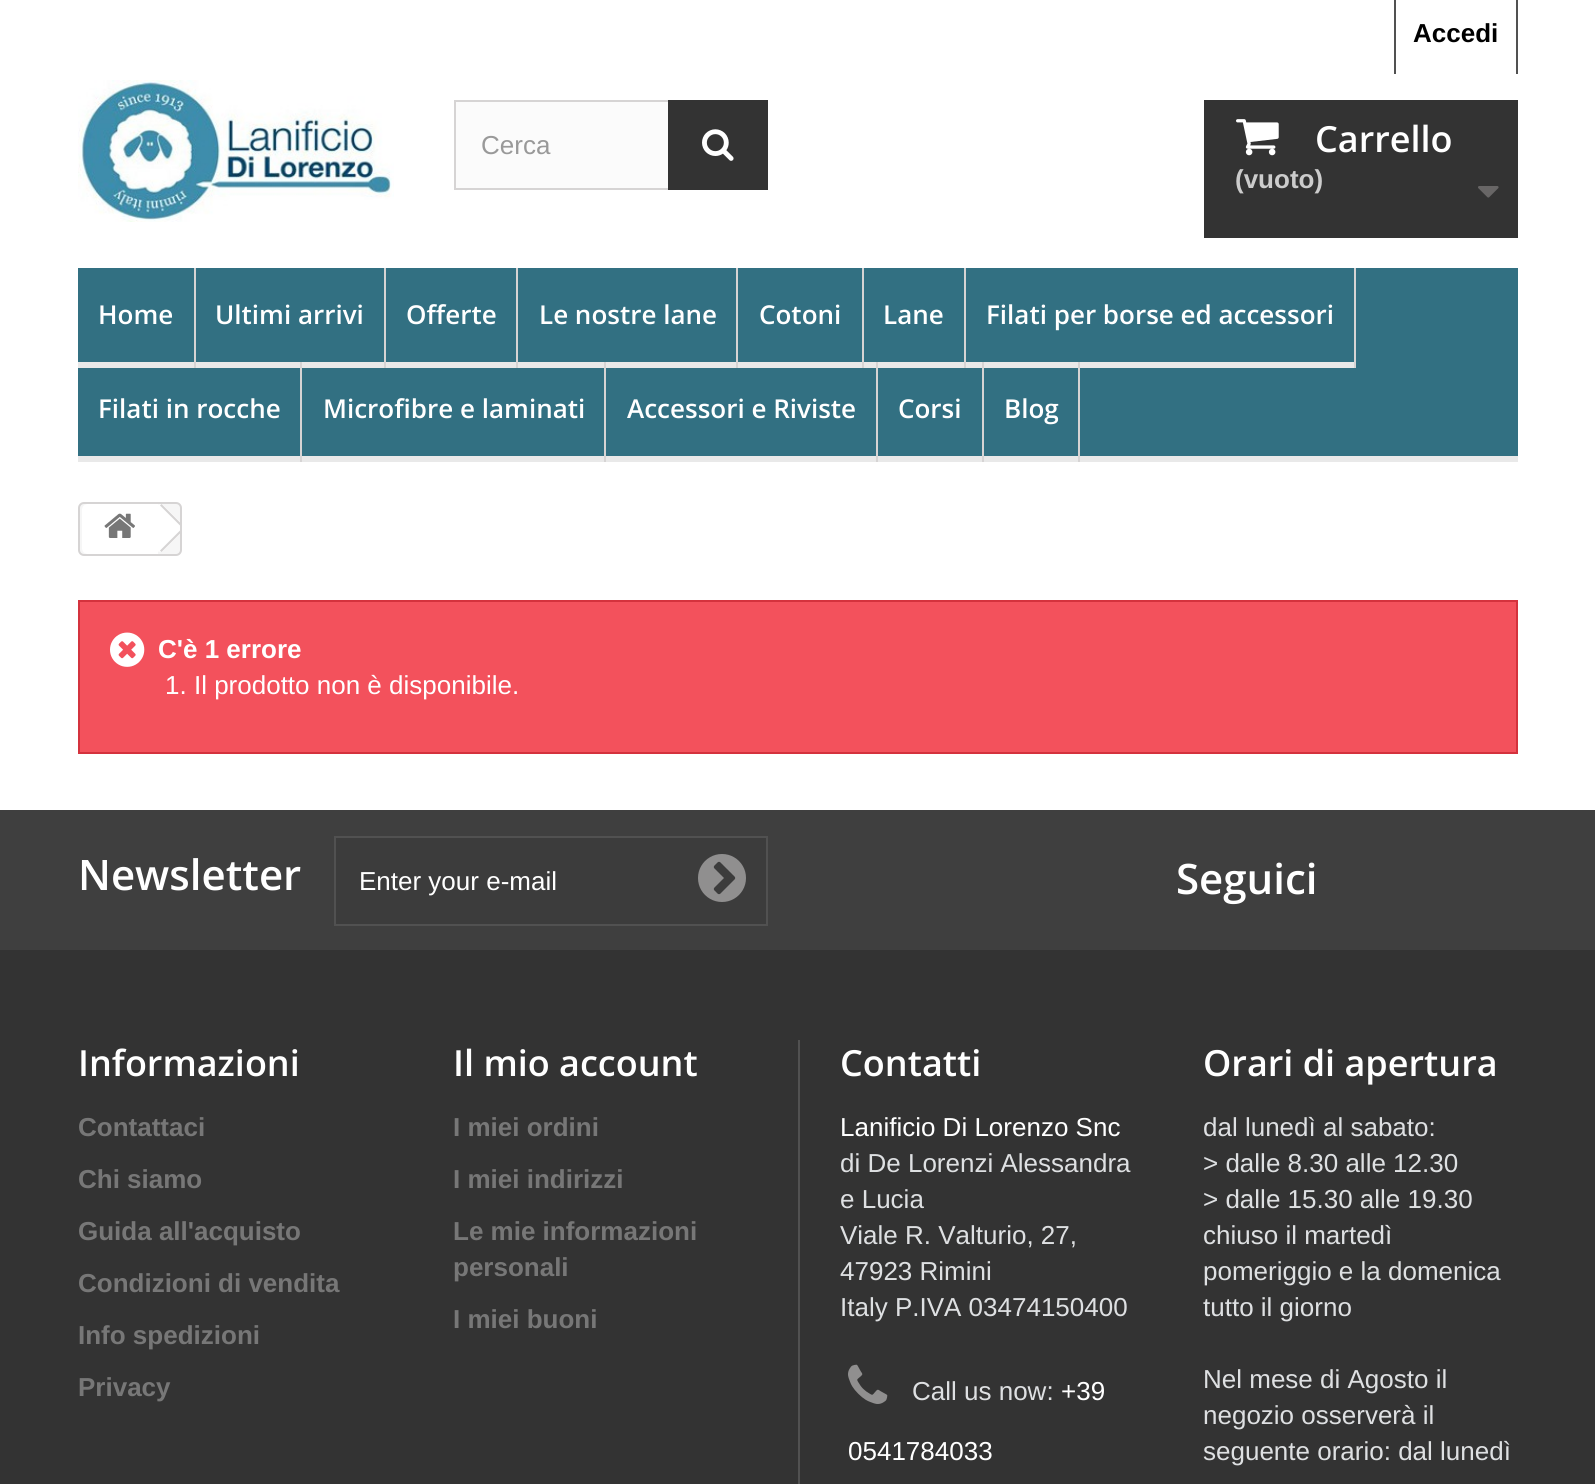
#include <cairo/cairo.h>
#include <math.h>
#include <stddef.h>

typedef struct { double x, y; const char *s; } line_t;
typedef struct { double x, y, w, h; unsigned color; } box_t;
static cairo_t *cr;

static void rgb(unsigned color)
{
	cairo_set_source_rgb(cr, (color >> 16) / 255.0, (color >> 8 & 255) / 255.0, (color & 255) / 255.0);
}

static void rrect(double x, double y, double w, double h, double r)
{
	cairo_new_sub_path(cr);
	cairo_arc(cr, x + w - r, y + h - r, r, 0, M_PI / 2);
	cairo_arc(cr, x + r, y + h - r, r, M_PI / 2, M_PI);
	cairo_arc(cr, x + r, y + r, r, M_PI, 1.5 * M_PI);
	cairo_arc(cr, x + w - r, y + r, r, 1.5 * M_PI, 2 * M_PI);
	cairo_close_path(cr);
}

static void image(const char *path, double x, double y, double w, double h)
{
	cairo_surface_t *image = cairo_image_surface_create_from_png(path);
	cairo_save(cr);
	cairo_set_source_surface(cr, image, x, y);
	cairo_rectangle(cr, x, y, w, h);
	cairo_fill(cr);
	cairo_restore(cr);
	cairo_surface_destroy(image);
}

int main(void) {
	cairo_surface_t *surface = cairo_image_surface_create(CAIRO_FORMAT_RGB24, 1595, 1484);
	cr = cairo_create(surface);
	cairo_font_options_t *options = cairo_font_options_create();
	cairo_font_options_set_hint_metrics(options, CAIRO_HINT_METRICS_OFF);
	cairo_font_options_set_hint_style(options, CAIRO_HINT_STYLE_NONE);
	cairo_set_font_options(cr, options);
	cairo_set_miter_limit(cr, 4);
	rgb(0xffffff);
	cairo_paint(cr);
	image("img/1.png", 78, 80, 316, 142);
	rgb(0xfbfbfb);
	cairo_rectangle(cr, 456, 102, 212, 86);
	cairo_fill(cr);
	cairo_rectangle(cr, 455, 101, 312, 88);
	rgb(0xd6d4d4);
	cairo_stroke(cr);
	rgb(0x333333);
	cairo_rectangle(cr, 668, 100, 100, 90);
	cairo_fill(cr);
	image("img/2.png", 702, 129, 32, 32);
	{
		static const box_t items[] = {
			{1516, 0, 2, 74, 0x515151},
			{1394, 0, 2, 74, 0x515151},
			{1204, 100, 314, 138, 0x333333},
		};
		for (size_t i = 0; i < sizeof items / sizeof *items; i++) {
			rgb(items[i].color);
			cairo_rectangle(cr, items[i].x, items[i].y, items[i].w, items[i].h);
			cairo_fill(cr);
		}
	}
	image("img/3.png", 1236, 119, 43, 37);
	image("img/4.png", 1478, 186, 21, 12);
	{
		static const box_t items[] = {
			{78, 268, 1440, 188, 0x327082},
			{78, 456, 1440, 6, 0xe9e9e9},
			{194, 268, 2, 100, 0xd6d4d4},
			{78, 362, 116, 6, 0xe9e9e9},
			{384, 268, 2, 100, 0xd6d4d4},
			{196, 362, 188, 6, 0xe9e9e9},
			{516, 268, 2, 100, 0xd6d4d4},
			{386, 362, 130, 6, 0xe9e9e9},
			{736, 268, 2, 100, 0xd6d4d4},
			{518, 362, 218, 6, 0xe9e9e9},
			{862, 268, 2, 100, 0xd6d4d4},
			{738, 362, 124, 6, 0xe9e9e9},
			{964, 268, 2, 100, 0xd6d4d4},
			{864, 362, 100, 6, 0xe9e9e9},
			{1354, 268, 2, 100, 0xd6d4d4},
			{966, 362, 388, 6, 0xe9e9e9},
			{300, 362, 2, 100, 0xd6d4d4},
			{604, 362, 2, 100, 0xd6d4d4},
			{876, 362, 2, 100, 0xd6d4d4},
			{982, 362, 2, 100, 0xd6d4d4},
			{1078, 362, 2, 100, 0xd6d4d4},
		};
		for (size_t i = 0; i < sizeof items / sizeof *items; i++) {
			rgb(items[i].color);
			cairo_rectangle(cr, items[i].x, items[i].y, items[i].w, items[i].h);
			cairo_fill(cr);
		}
	}
	rgb(0xf6f6f6);
	rrect(79, 503, 102, 52, 5);
	cairo_fill_preserve(cr);
	rgb(0xd6d4d4);
	cairo_stroke(cr);
	rgb(0xffffff);
	cairo_new_path(cr);
	cairo_move_to(cr, 88, 504);
	cairo_line_to(cr, 158, 504);
	cairo_line_to(cr, 158, 554);
	cairo_line_to(cr, 88, 554);
	cairo_curve_to(cr, 84.5, 554, 82, 551.5, 82, 548);
	cairo_line_to(cr, 82, 510);
	cairo_curve_to(cr, 82, 506.5, 84.5, 504, 88, 504);
	cairo_close_path(cr);
	cairo_fill(cr);
	image("img/5.png", 104, 513, 31, 25);
	cairo_new_path(cr);
	cairo_move_to(cr, 163, 505);
	cairo_line_to(cr, 180, 522);
	cairo_line_to(cr, 180, 534);
	cairo_line_to(cr, 163, 551);
	cairo_curve_to(cr, 161, 552, 159, 552, 157, 551);
	cairo_line_to(cr, 137, 531);
	cairo_curve_to(cr, 136, 529, 136, 527, 137, 525);
	cairo_line_to(cr, 157, 505);
	cairo_curve_to(cr, 159, 504, 161, 504, 163, 505);
	cairo_close_path(cr);
	cairo_fill(cr);
	rgb(0xd6d4d4);
	cairo_new_path(cr);
	cairo_move_to(cr, 161.5, 504);
	cairo_line_to(cr, 180, 522.5);
	cairo_line_to(cr, 180, 525.5);
	cairo_line_to(cr, 160, 505.5);
	cairo_close_path(cr);
	cairo_move_to(cr, 180, 530.5);
	cairo_line_to(cr, 180, 533.5);
	cairo_line_to(cr, 161.5, 552);
	cairo_line_to(cr, 160, 550.5);
	cairo_close_path(cr);
	cairo_fill(cr);
	rgb(0xf3515c);
	cairo_rectangle(cr, 79, 601, 1438, 152);
	cairo_fill_preserve(cr);
	rgb(0xd4323d);
	cairo_stroke(cr);
	image("img/6.png", 110, 632, 35, 35);
	rgb(0x333333);
	cairo_rectangle(cr, 0, 950, 1595, 534);
	cairo_fill(cr);
	rgb(0x3f3f3f);
	cairo_rectangle(cr, 0, 810, 1595, 140);
	cairo_fill(cr);
	rgb(0x3c3c3c);
	cairo_rectangle(cr, 335, 837, 432, 88);
	cairo_fill_preserve(cr);
	rgb(0x515151);
	cairo_stroke(cr);
	image("img/7.png", 698, 854, 48, 48);
	cairo_rectangle(cr, 798, 1040, 2, 444);
	cairo_fill(cr);
	image("img/8.png", 848, 1364, 40, 40);
	cairo_select_font_face(cr, "Liberation Sans", CAIRO_FONT_SLANT_NORMAL, CAIRO_FONT_WEIGHT_NORMAL);
	cairo_set_font_size(cr, 26);
	rgb(0x999999);
	cairo_move_to(cr, 481, 154);
	cairo_show_text(cr, "Cerca");
	cairo_select_font_face(cr, "Liberation Sans", CAIRO_FONT_SLANT_NORMAL, CAIRO_FONT_WEIGHT_BOLD);
	rgb(0x000000);
	cairo_move_to(cr, 1413, 42);
	cairo_show_text(cr, "Accedi");
	cairo_select_font_face(cr, "Open Sans SemiBold", CAIRO_FONT_SLANT_NORMAL, CAIRO_FONT_WEIGHT_NORMAL);
	cairo_set_font_size(cr, 36);
	rgb(0xffffff);
	cairo_move_to(cr, 1315, 152);
	cairo_show_text(cr, "Carrello");
	cairo_select_font_face(cr, "Liberation Sans", CAIRO_FONT_SLANT_NORMAL, CAIRO_FONT_WEIGHT_BOLD);
	cairo_set_font_size(cr, 26);
	rgb(0xcccccc);
	cairo_move_to(cr, 1235, 188);
	cairo_show_text(cr, "(vuoto)");
	cairo_select_font_face(cr, "Open Sans SemiBold", CAIRO_FONT_SLANT_NORMAL, CAIRO_FONT_WEIGHT_NORMAL);
	rgb(0xffffff);
	{
		static const line_t items[] = {
			{98, 324, "Home"},
			{215, 324, "Ultimi arrivi"},
			{406, 324, "Offerte"},
			{539, 324, "Le nostre lane"},
			{759, 324, "Cotoni"},
			{883, 324, "Lane"},
			{986, 324, "Filati per borse ed accessori"},
			{98, 418, "Filati in rocche"},
			{323, 418, "Microfibre e laminati"},
			{627, 418, "Accessori e Riviste"},
			{898, 418, "Corsi"},
			{1004, 418, "Blog"},
		};
		for (size_t i = 0; i < sizeof items / sizeof *items; i++) {
			cairo_move_to(cr, items[i].x, items[i].y);
			cairo_show_text(cr, items[i].s);
		}
	}
	cairo_select_font_face(cr, "Liberation Sans", CAIRO_FONT_SLANT_NORMAL, CAIRO_FONT_WEIGHT_BOLD);
	cairo_move_to(cr, 158, 658);
	cairo_show_text(cr, "C'è 1 errore");
	cairo_select_font_face(cr, "Liberation Sans", CAIRO_FONT_SLANT_NORMAL, CAIRO_FONT_WEIGHT_NORMAL);
	cairo_move_to(cr, 165, 694);
	cairo_show_text(cr, "1. Il prodotto non è disponibile.");
	cairo_select_font_face(cr, "Open Sans SemiBold", CAIRO_FONT_SLANT_NORMAL, CAIRO_FONT_WEIGHT_NORMAL);
	cairo_set_font_size(cr, 42);
	cairo_move_to(cr, 78, 890);
	cairo_show_text(cr, "Newsletter");
	cairo_select_font_face(cr, "Liberation Sans", CAIRO_FONT_SLANT_NORMAL, CAIRO_FONT_WEIGHT_NORMAL);
	cairo_set_font_size(cr, 26);
	cairo_move_to(cr, 359, 890);
	cairo_show_text(cr, "Enter your e-mail");
	cairo_select_font_face(cr, "Open Sans SemiBold", CAIRO_FONT_SLANT_NORMAL, CAIRO_FONT_WEIGHT_NORMAL);
	cairo_set_font_size(cr, 42);
	cairo_move_to(cr, 1176, 894);
	cairo_show_text(cr, "Seguici");
	cairo_set_font_size(cr, 36);
	cairo_move_to(cr, 78, 1076);
	cairo_show_text(cr, "Informazioni");
	cairo_select_font_face(cr, "Liberation Sans", CAIRO_FONT_SLANT_NORMAL, CAIRO_FONT_WEIGHT_BOLD);
	cairo_set_font_size(cr, 26);
	rgb(0x777777);
	{
		static const line_t items[] = {
			{78, 1136, "Contattaci"},
			{78, 1188, "Chi siamo"},
			{78, 1240, "Guida all'acquisto"},
			{78, 1292, "Condizioni di vendita"},
			{78, 1344, "Info spedizioni"},
			{78, 1396, "Privacy"},
		};
		for (size_t i = 0; i < sizeof items / sizeof *items; i++) {
			cairo_move_to(cr, items[i].x, items[i].y);
			cairo_show_text(cr, items[i].s);
		}
	}
	cairo_select_font_face(cr, "Open Sans SemiBold", CAIRO_FONT_SLANT_NORMAL, CAIRO_FONT_WEIGHT_NORMAL);
	cairo_set_font_size(cr, 36);
	rgb(0xffffff);
	cairo_move_to(cr, 453, 1076);
	cairo_show_text(cr, "Il mio account");
	cairo_select_font_face(cr, "Liberation Sans", CAIRO_FONT_SLANT_NORMAL, CAIRO_FONT_WEIGHT_BOLD);
	cairo_set_font_size(cr, 26);
	rgb(0x777777);
	{
		static const line_t items[] = {
			{453, 1136, "I miei ordini"},
			{453, 1188, "I miei indirizzi"},
			{453, 1240, "Le mie informazioni"},
			{453, 1276, "personali"},
			{453, 1328, "I miei buoni"},
		};
		for (size_t i = 0; i < sizeof items / sizeof *items; i++) {
			cairo_move_to(cr, items[i].x, items[i].y);
			cairo_show_text(cr, items[i].s);
		}
	}
	cairo_select_font_face(cr, "Open Sans SemiBold", CAIRO_FONT_SLANT_NORMAL, CAIRO_FONT_WEIGHT_NORMAL);
	cairo_set_font_size(cr, 36);
	rgb(0xffffff);
	cairo_move_to(cr, 840, 1076);
	cairo_show_text(cr, "Contatti");
	cairo_select_font_face(cr, "Liberation Sans", CAIRO_FONT_SLANT_NORMAL, CAIRO_FONT_WEIGHT_NORMAL);
	cairo_set_font_size(cr, 26);
	cairo_move_to(cr, 840, 1136);
	cairo_show_text(cr, "Lanificio Di Lorenzo Snc");
	rgb(0xdee0e2);
	{
		static const line_t items[] = {
			{840, 1172, "di De Lorenzi Alessandra"},
			{840, 1208, "e Lucia"},
			{840, 1244, "Viale R. Valturio, 27,"},
			{840, 1280, "47923 Rimini"},
			{840, 1316, "Italy P.IVA 03474150400"},
			{912, 1400, "Call us now:"},
		};
		for (size_t i = 0; i < sizeof items / sizeof *items; i++) {
			cairo_move_to(cr, items[i].x, items[i].y);
			cairo_show_text(cr, items[i].s);
		}
	}
	rgb(0xffffff);
	cairo_move_to(cr, 1061, 1400);
	cairo_show_text(cr, "+39");
	cairo_move_to(cr, 848, 1460);
	cairo_show_text(cr, "0541784033");
	cairo_select_font_face(cr, "Open Sans SemiBold", CAIRO_FONT_SLANT_NORMAL, CAIRO_FONT_WEIGHT_NORMAL);
	cairo_set_font_size(cr, 36);
	cairo_move_to(cr, 1203, 1076);
	cairo_show_text(cr, "Orari di apertura");
	cairo_select_font_face(cr, "Liberation Sans", CAIRO_FONT_SLANT_NORMAL, CAIRO_FONT_WEIGHT_NORMAL);
	cairo_set_font_size(cr, 26);
	rgb(0xdee0e2);
	{
		static const line_t items[] = {
			{1203, 1136, "dal lunedì al sabato:"},
			{1203, 1172, "> dalle 8.30 alle 12.30"},
			{1203, 1208, "> dalle 15.30 alle 19.30"},
			{1203, 1244, "chiuso il martedì"},
			{1203, 1280, "pomeriggio e la domenica"},
			{1203, 1316, "tutto il giorno"},
			{1203, 1388, "Nel mese di Agosto il"},
			{1203, 1424, "negozio osserverà il"},
			{1203, 1460, "seguente orario: dal lunedì"},
		};
		for (size_t i = 0; i < sizeof items / sizeof *items; i++) {
			cairo_move_to(cr, items[i].x, items[i].y);
			cairo_show_text(cr, items[i].s);
		}
	}
	cairo_surface_write_to_png(surface, "page.png");
	cairo_font_options_destroy(options);
	cairo_destroy(cr);
	cairo_surface_destroy(surface);
	return 0;
}
